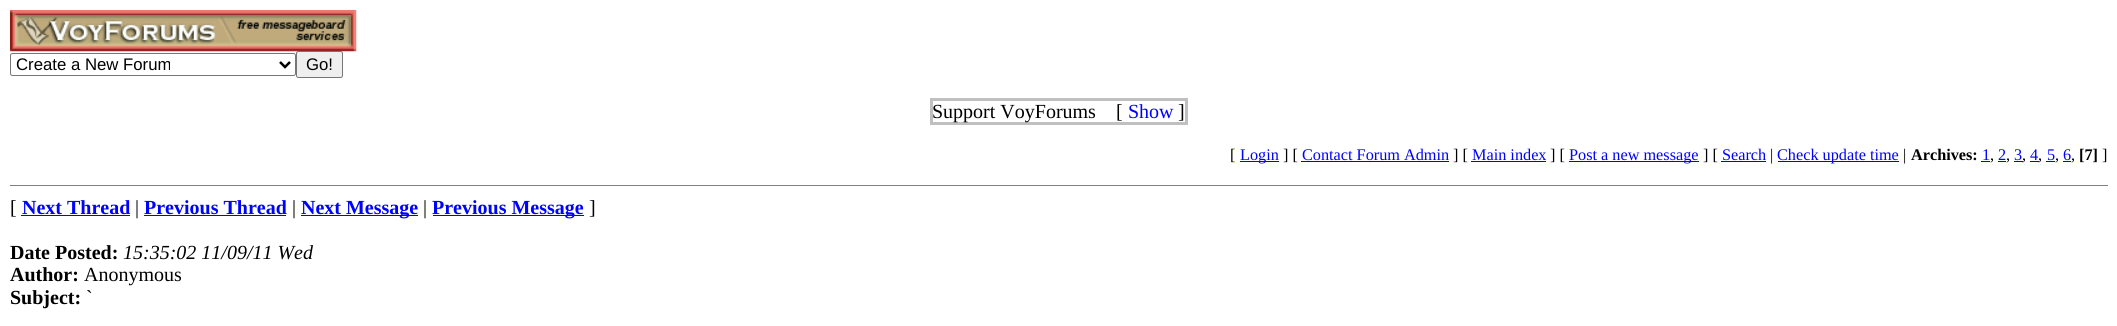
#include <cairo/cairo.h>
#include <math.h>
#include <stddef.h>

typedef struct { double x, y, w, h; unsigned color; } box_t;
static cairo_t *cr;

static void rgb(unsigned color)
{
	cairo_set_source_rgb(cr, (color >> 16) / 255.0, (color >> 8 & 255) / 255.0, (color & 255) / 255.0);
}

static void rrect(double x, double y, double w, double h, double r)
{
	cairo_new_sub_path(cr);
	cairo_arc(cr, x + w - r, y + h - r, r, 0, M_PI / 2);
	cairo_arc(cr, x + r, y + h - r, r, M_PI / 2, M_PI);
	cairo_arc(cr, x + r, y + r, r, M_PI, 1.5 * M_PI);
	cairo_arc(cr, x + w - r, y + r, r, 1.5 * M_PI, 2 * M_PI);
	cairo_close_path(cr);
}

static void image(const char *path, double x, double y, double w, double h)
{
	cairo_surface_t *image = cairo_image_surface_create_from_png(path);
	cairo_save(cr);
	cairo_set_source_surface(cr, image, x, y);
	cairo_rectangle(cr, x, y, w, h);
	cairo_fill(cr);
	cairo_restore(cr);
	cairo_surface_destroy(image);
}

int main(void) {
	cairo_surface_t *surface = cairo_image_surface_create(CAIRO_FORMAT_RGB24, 2117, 326);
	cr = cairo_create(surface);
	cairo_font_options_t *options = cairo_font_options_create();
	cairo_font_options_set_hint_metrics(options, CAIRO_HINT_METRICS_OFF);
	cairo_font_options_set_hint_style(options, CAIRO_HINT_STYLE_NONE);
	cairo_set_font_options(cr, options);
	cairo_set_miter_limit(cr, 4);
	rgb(0xffffff);
	cairo_paint(cr);
	image("img/1.png", 10, 10, 347, 42);
	rrect(10.5, 53.5, 285, 22, 2);
	rgb(0x767676);
	cairo_set_line_width(cr, 1);
	cairo_stroke(cr);
	cairo_new_path(cr);
	cairo_move_to(cr, 280, 62);
	cairo_line_to(cr, 285, 67);
	cairo_line_to(cr, 290, 62);
	rgb(0x000000);
	cairo_set_line_width(cr, 2.5);
	cairo_stroke(cr);
	rgb(0xefefef);
	rrect(296.5, 51.5, 46, 26, 2);
	cairo_fill_preserve(cr);
	rgb(0x767676);
	cairo_set_line_width(cr, 1);
	cairo_stroke(cr);
	cairo_rectangle(cr, 931.5, 99.5, 255, 24);
	rgb(0xc0c0c0);
	cairo_set_line_width(cr, 3);
	cairo_stroke(cr);
	{
		static const box_t items[] = {
			{1240, 161, 39, 1, 0x0000ff},
			{1301, 161, 148, 1, 0x0000ff},
			{1471, 161, 75, 1, 0x0000ff},
			{1569, 161, 130, 1, 0x0000ff},
			{1721, 161, 45, 1, 0x0000ff},
			{1778, 161, 121, 1, 0x0000ff},
			{1981, 161, 9, 1, 0x0000ff},
			{1998, 161, 8, 1, 0x0000ff},
			{2014, 161, 9, 1, 0x0000ff},
			{2030, 161, 9, 1, 0x0000ff},
			{2046, 161, 9, 1, 0x0000ff},
			{2063, 161, 8, 1, 0x0000ff},
			{10, 185, 2098, 1, 0x808080},
			{21, 215, 109, 1, 0x0000ff},
			{144, 215, 142, 1, 0x0000ff},
			{301, 215, 117, 1, 0x0000ff},
			{433, 215, 151, 1, 0x0000ff},
		};
		for (size_t i = 0; i < sizeof items / sizeof *items; i++) {
			rgb(items[i].color);
			cairo_rectangle(cr, items[i].x, items[i].y, items[i].w, items[i].h);
			cairo_fill(cr);
		}
	}
	cairo_select_font_face(cr, "Liberation Sans", CAIRO_FONT_SLANT_NORMAL, CAIRO_FONT_WEIGHT_NORMAL);
	cairo_set_font_size(cr, 16.75);
	rgb(0x000000);
	cairo_move_to(cr, 16, 70);
	cairo_show_text(cr, "Create a New Forum");
	cairo_move_to(cr, 306, 70);
	cairo_show_text(cr, "Go!");
	cairo_select_font_face(cr, "Liberation Serif", CAIRO_FONT_SLANT_NORMAL, CAIRO_FONT_WEIGHT_NORMAL);
	cairo_set_font_size(cr, 20);
	cairo_move_to(cr, 932, 118);
	cairo_show_text(cr, "Support VoyForums");
	cairo_move_to(cr, 1116, 118);
	cairo_show_text(cr, "[");
	rgb(0x0000ff);
	cairo_move_to(cr, 1128, 118);
	cairo_show_text(cr, "Show");
	rgb(0x000000);
	cairo_move_to(cr, 1178, 118);
	cairo_show_text(cr, "]");
	cairo_set_font_size(cr, 16.25);
	cairo_move_to(cr, 1230, 160);
	cairo_show_text(cr, "[");
	rgb(0x0000ff);
	cairo_move_to(cr, 1240, 160);
	cairo_show_text(cr, "Login");
	rgb(0x000000);
	cairo_move_to(cr, 1283, 160);
	cairo_show_text(cr, "] [");
	rgb(0x0000ff);
	cairo_move_to(cr, 1302, 160);
	cairo_show_text(cr, "Contact Forum Admin");
	rgb(0x000000);
	cairo_move_to(cr, 1453, 160);
	cairo_show_text(cr, "] [");
	rgb(0x0000ff);
	cairo_move_to(cr, 1472, 160);
	cairo_show_text(cr, "Main index");
	rgb(0x000000);
	cairo_move_to(cr, 1550, 160);
	cairo_show_text(cr, "] [");
	rgb(0x0000ff);
	cairo_move_to(cr, 1569, 160);
	cairo_show_text(cr, "Post a new message");
	rgb(0x000000);
	cairo_move_to(cr, 1703, 160);
	cairo_show_text(cr, "] [");
	rgb(0x0000ff);
	cairo_move_to(cr, 1722, 160);
	cairo_show_text(cr, "Search");
	rgb(0x000000);
	cairo_move_to(cr, 1770, 160);
	cairo_show_text(cr, "|");
	rgb(0x0000ff);
	cairo_move_to(cr, 1777, 160);
	cairo_show_text(cr, "Check update time");
	rgb(0x000000);
	cairo_move_to(cr, 1903, 160);
	cairo_show_text(cr, "|");
	cairo_select_font_face(cr, "Liberation Serif", CAIRO_FONT_SLANT_NORMAL, CAIRO_FONT_WEIGHT_BOLD);
	cairo_move_to(cr, 1911, 160);
	cairo_show_text(cr, "Archives:");
	cairo_select_font_face(cr, "Liberation Serif", CAIRO_FONT_SLANT_NORMAL, CAIRO_FONT_WEIGHT_NORMAL);
	rgb(0x0000ff);
	cairo_move_to(cr, 1982, 160);
	cairo_show_text(cr, "1");
	rgb(0x000000);
	cairo_move_to(cr, 1990, 160);
	cairo_show_text(cr, ",");
	rgb(0x0000ff);
	cairo_move_to(cr, 1998, 160);
	cairo_show_text(cr, "2");
	rgb(0x000000);
	cairo_move_to(cr, 2006, 160);
	cairo_show_text(cr, ",");
	rgb(0x0000ff);
	cairo_move_to(cr, 2014, 160);
	cairo_show_text(cr, "3");
	rgb(0x000000);
	cairo_move_to(cr, 2022, 160);
	cairo_show_text(cr, ",");
	rgb(0x0000ff);
	cairo_move_to(cr, 2030, 160);
	cairo_show_text(cr, "4");
	rgb(0x000000);
	cairo_move_to(cr, 2038, 160);
	cairo_show_text(cr, ",");
	rgb(0x0000ff);
	cairo_move_to(cr, 2047, 160);
	cairo_show_text(cr, "5");
	rgb(0x000000);
	cairo_move_to(cr, 2055, 160);
	cairo_show_text(cr, ",");
	rgb(0x0000ff);
	cairo_move_to(cr, 2063, 160);
	cairo_show_text(cr, "6");
	rgb(0x000000);
	cairo_move_to(cr, 2071, 160);
	cairo_show_text(cr, ",");
	cairo_select_font_face(cr, "Liberation Serif", CAIRO_FONT_SLANT_NORMAL, CAIRO_FONT_WEIGHT_BOLD);
	cairo_move_to(cr, 2079, 160);
	cairo_show_text(cr, "[7]");
	cairo_select_font_face(cr, "Liberation Serif", CAIRO_FONT_SLANT_NORMAL, CAIRO_FONT_WEIGHT_NORMAL);
	cairo_move_to(cr, 2102, 160);
	cairo_show_text(cr, "]");
	cairo_set_font_size(cr, 20);
	cairo_move_to(cr, 10, 214);
	cairo_show_text(cr, "[");
	cairo_select_font_face(cr, "Liberation Serif", CAIRO_FONT_SLANT_NORMAL, CAIRO_FONT_WEIGHT_BOLD);
	rgb(0x0000ff);
	cairo_move_to(cr, 22, 214);
	cairo_show_text(cr, "Next Thread");
	cairo_select_font_face(cr, "Liberation Serif", CAIRO_FONT_SLANT_NORMAL, CAIRO_FONT_WEIGHT_NORMAL);
	rgb(0x000000);
	cairo_move_to(cr, 135, 214);
	cairo_show_text(cr, "|");
	cairo_select_font_face(cr, "Liberation Serif", CAIRO_FONT_SLANT_NORMAL, CAIRO_FONT_WEIGHT_BOLD);
	rgb(0x0000ff);
	cairo_move_to(cr, 144, 214);
	cairo_show_text(cr, "Previous Thread");
	cairo_select_font_face(cr, "Liberation Serif", CAIRO_FONT_SLANT_NORMAL, CAIRO_FONT_WEIGHT_NORMAL);
	rgb(0x000000);
	cairo_move_to(cr, 292, 214);
	cairo_show_text(cr, "|");
	cairo_select_font_face(cr, "Liberation Serif", CAIRO_FONT_SLANT_NORMAL, CAIRO_FONT_WEIGHT_BOLD);
	rgb(0x0000ff);
	cairo_move_to(cr, 301, 214);
	cairo_show_text(cr, "Next Message");
	cairo_select_font_face(cr, "Liberation Serif", CAIRO_FONT_SLANT_NORMAL, CAIRO_FONT_WEIGHT_NORMAL);
	rgb(0x000000);
	cairo_move_to(cr, 423, 214);
	cairo_show_text(cr, "|");
	cairo_select_font_face(cr, "Liberation Serif", CAIRO_FONT_SLANT_NORMAL, CAIRO_FONT_WEIGHT_BOLD);
	rgb(0x0000ff);
	cairo_move_to(cr, 432, 214);
	cairo_show_text(cr, "Previous Message");
	cairo_select_font_face(cr, "Liberation Serif", CAIRO_FONT_SLANT_NORMAL, CAIRO_FONT_WEIGHT_NORMAL);
	rgb(0x000000);
	cairo_move_to(cr, 589, 214);
	cairo_show_text(cr, "]");
	cairo_select_font_face(cr, "Liberation Serif", CAIRO_FONT_SLANT_NORMAL, CAIRO_FONT_WEIGHT_BOLD);
	cairo_move_to(cr, 10, 259);
	cairo_show_text(cr, "Date Posted:");
	cairo_select_font_face(cr, "Liberation Serif", CAIRO_FONT_SLANT_ITALIC, CAIRO_FONT_WEIGHT_NORMAL);
	cairo_move_to(cr, 123, 259);
	cairo_show_text(cr, "15:35:02 11/09/11 Wed");
	cairo_select_font_face(cr, "Liberation Serif", CAIRO_FONT_SLANT_NORMAL, CAIRO_FONT_WEIGHT_BOLD);
	cairo_move_to(cr, 10, 281);
	cairo_show_text(cr, "Author:");
	cairo_select_font_face(cr, "Liberation Serif", CAIRO_FONT_SLANT_NORMAL, CAIRO_FONT_WEIGHT_NORMAL);
	cairo_move_to(cr, 84, 281);
	cairo_show_text(cr, "Anonymous");
	cairo_select_font_face(cr, "Liberation Serif", CAIRO_FONT_SLANT_NORMAL, CAIRO_FONT_WEIGHT_BOLD);
	cairo_move_to(cr, 10, 304);
	cairo_show_text(cr, "Subject:");
	cairo_select_font_face(cr, "Liberation Serif", CAIRO_FONT_SLANT_NORMAL, CAIRO_FONT_WEIGHT_NORMAL);
	cairo_move_to(cr, 86, 304);
	cairo_show_text(cr, "`");
	cairo_surface_write_to_png(surface, "page.png");
	cairo_font_options_destroy(options);
	cairo_destroy(cr);
	cairo_surface_destroy(surface);
	return 0;
}
